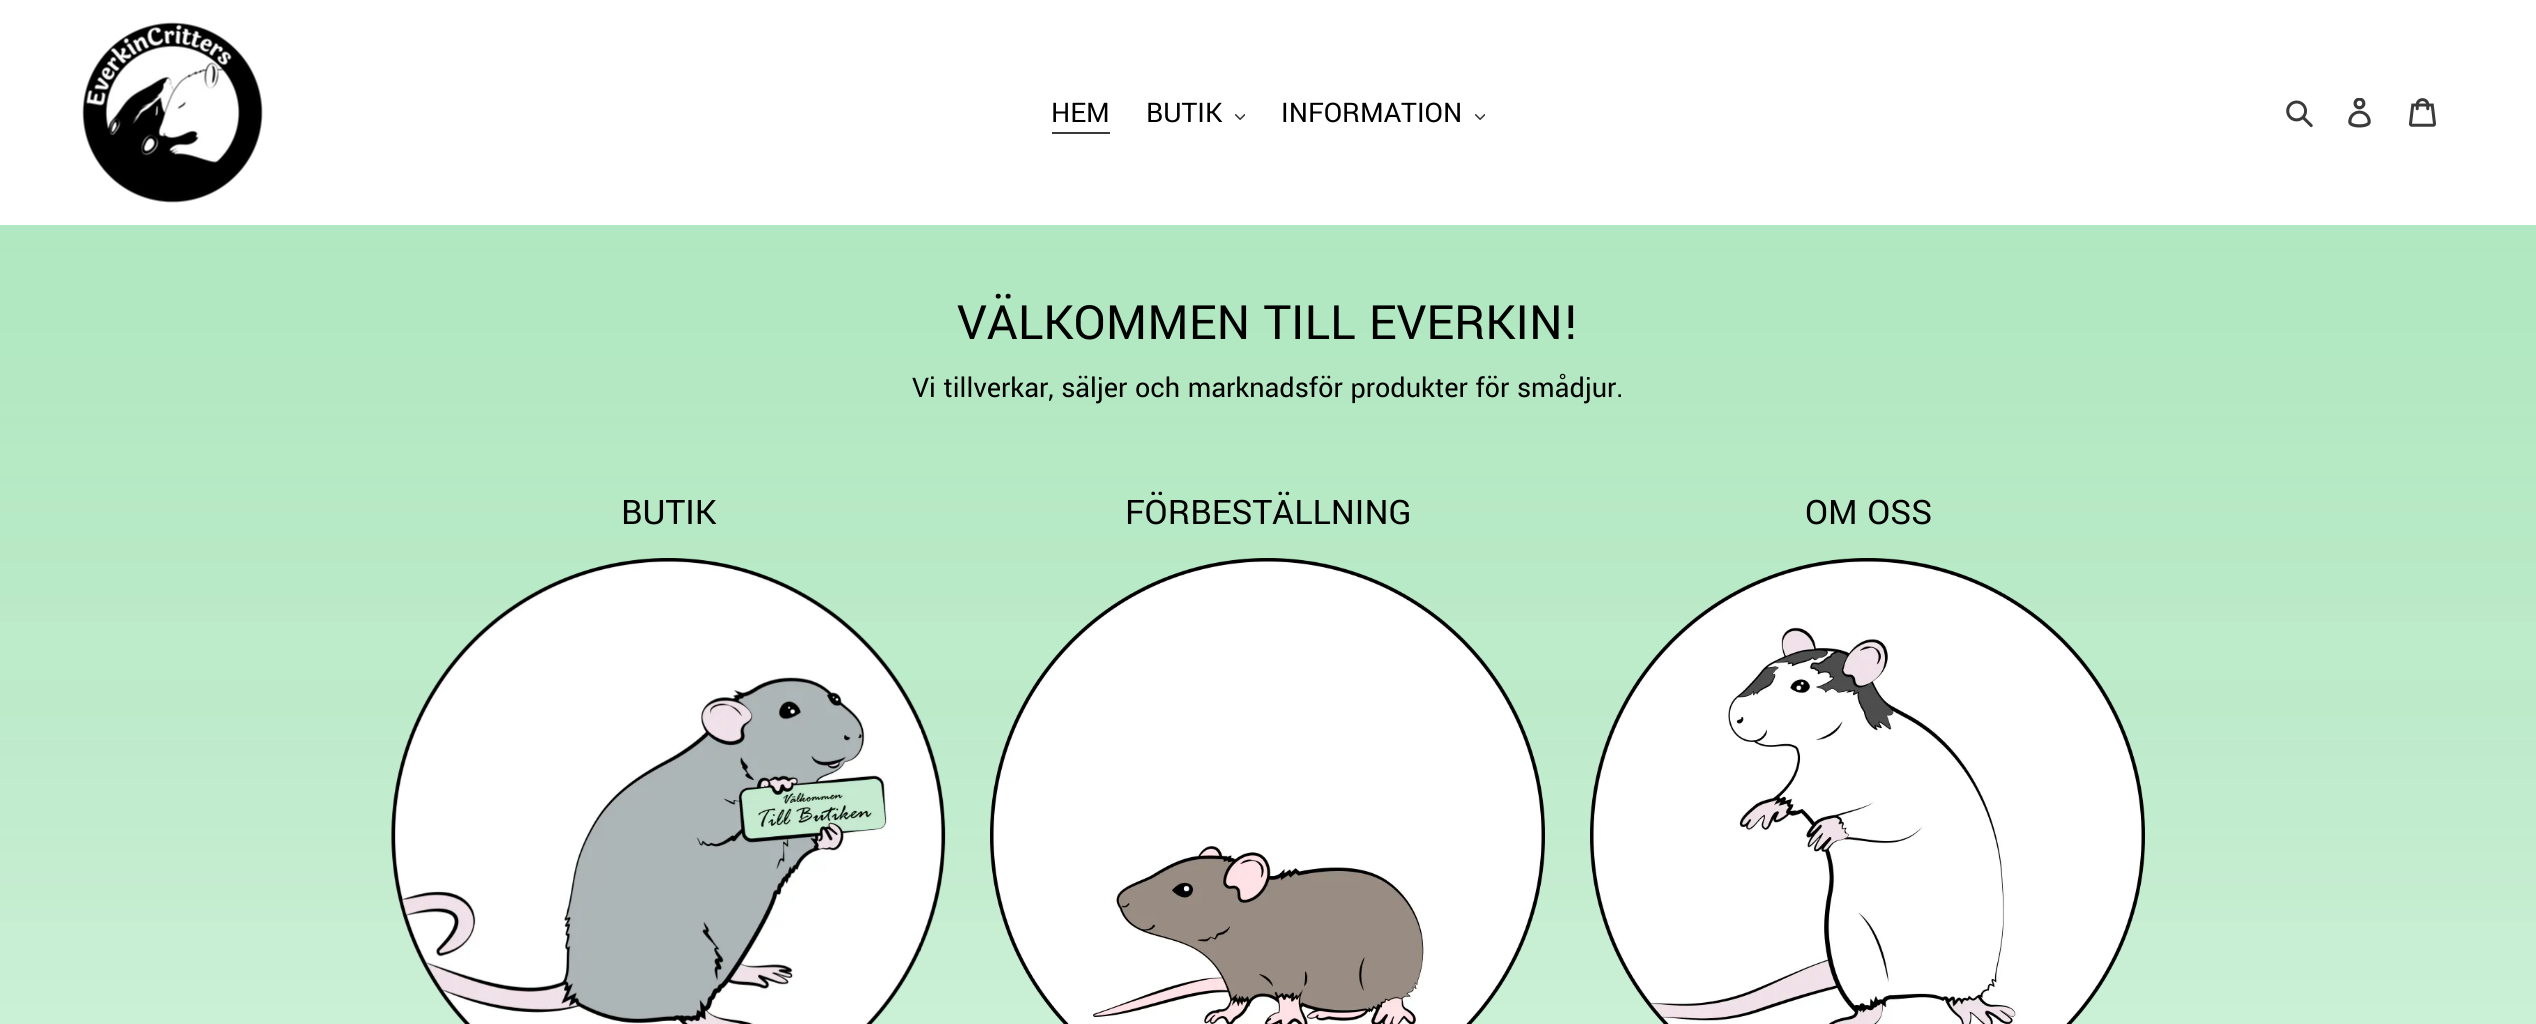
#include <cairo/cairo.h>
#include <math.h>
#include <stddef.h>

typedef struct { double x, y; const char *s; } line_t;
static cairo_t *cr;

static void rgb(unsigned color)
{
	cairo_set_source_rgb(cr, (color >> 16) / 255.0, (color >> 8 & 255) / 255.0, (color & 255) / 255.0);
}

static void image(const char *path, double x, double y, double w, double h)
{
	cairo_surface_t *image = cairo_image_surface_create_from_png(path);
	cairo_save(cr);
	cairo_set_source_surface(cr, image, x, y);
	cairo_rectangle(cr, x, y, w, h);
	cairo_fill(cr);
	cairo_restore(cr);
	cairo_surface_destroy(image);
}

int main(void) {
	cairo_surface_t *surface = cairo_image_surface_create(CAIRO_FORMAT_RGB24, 2536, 1024);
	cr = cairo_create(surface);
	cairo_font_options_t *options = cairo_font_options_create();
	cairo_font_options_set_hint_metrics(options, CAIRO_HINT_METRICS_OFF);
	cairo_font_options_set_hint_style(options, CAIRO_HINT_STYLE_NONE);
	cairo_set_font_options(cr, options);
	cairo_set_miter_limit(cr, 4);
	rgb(0xffffff);
	cairo_paint(cr);
	image("img/1.png", 82, 22, 181, 181);
	rgb(0x3a3a3a);
	cairo_rectangle(cr, 1052, 132, 58, 2);
	cairo_fill(cr);
	image("img/2.png", 1235, 114, 10, 6);
	image("img/2.png", 1475, 114, 10, 6);
	image("img/3.png", 2286, 100, 27, 28);
	image("img/4.png", 2348, 98, 23, 30);
	image("img/5.png", 2409, 98, 27, 29);
	image("img/6.png", 0, 225, 2536, 799);
	image("img/7.png", 391, 558, 555, 466);
	image("img/8.png", 990, 558, 555, 466);
	image("img/9.png", 1590, 558, 555, 466);
	cairo_select_font_face(cr, "Yantramanav", CAIRO_FONT_SLANT_NORMAL, CAIRO_FONT_WEIGHT_NORMAL);
	cairo_set_font_size(cr, 30);
	rgb(0x000000);
	{
		static const line_t items[] = {
			{1051, 122, "HEM"},
			{1146, 122, "BUTIK"},
			{1281, 122, "INFORMATION"},
		};
		for (size_t i = 0; i < sizeof items / sizeof *items; i++) {
			cairo_move_to(cr, items[i].x, items[i].y);
			cairo_show_text(cr, items[i].s);
		}
	}
	cairo_set_font_size(cr, 52.5);
	cairo_move_to(cr, 957, 339);
	cairo_show_text(cr, "VÄLKOMMEN TILL EVERKIN!");
	cairo_set_font_size(cr, 30);
	cairo_move_to(cr, 912, 397);
	cairo_show_text(cr, "Vi tillverkar, säljer och marknadsför produkter för smådjur.");
	cairo_set_font_size(cr, 37.5);
	{
		static const line_t items[] = {
			{621, 524, "BUTIK"},
			{1125, 524, "FÖRBESTÄLLNING"},
			{1805, 524, "OM OSS"},
		};
		for (size_t i = 0; i < sizeof items / sizeof *items; i++) {
			cairo_move_to(cr, items[i].x, items[i].y);
			cairo_show_text(cr, items[i].s);
		}
	}
	cairo_surface_write_to_png(surface, "page.png");
	cairo_font_options_destroy(options);
	cairo_destroy(cr);
	cairo_surface_destroy(surface);
	return 0;
}
